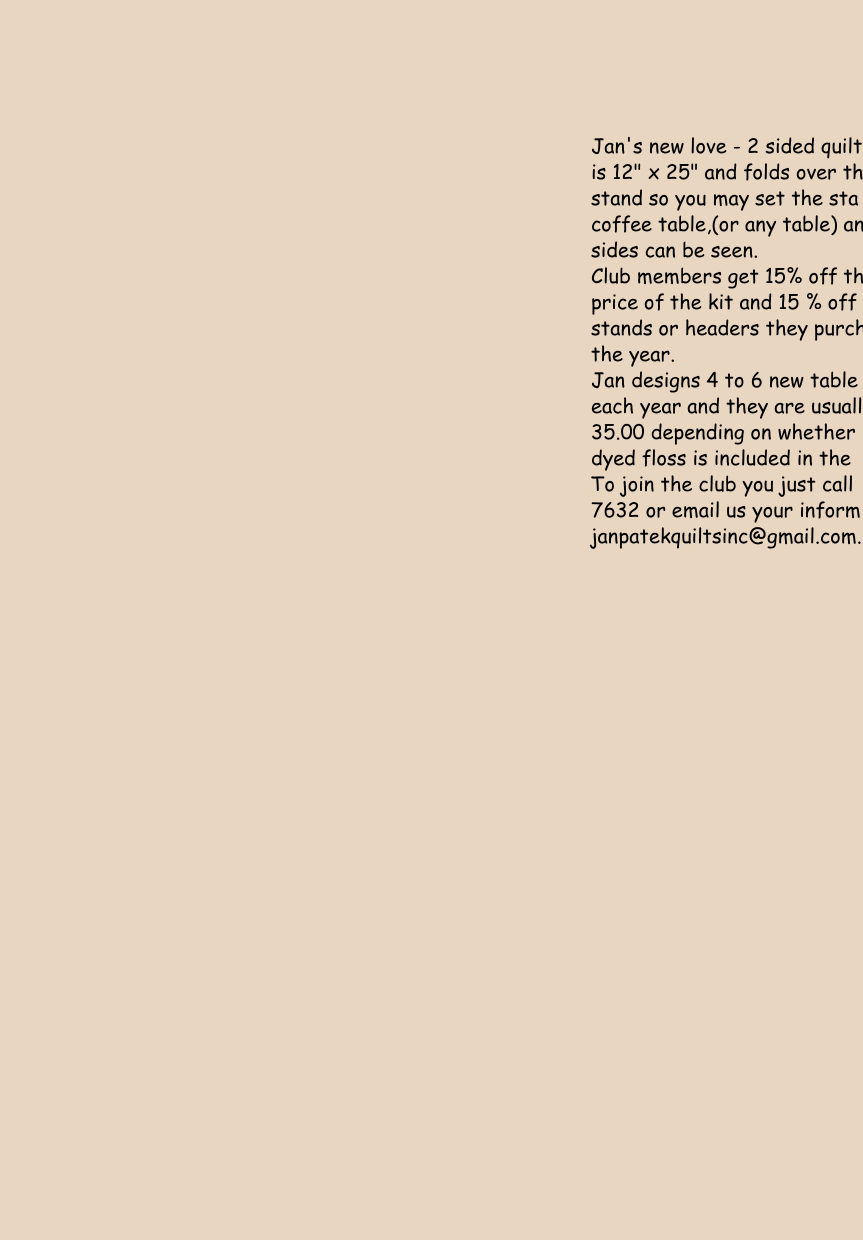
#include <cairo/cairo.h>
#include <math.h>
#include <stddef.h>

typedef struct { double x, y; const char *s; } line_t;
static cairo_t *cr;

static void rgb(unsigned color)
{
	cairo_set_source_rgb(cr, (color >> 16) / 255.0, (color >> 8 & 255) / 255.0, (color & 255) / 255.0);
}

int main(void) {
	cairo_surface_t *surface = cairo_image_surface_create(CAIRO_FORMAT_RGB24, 863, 1240);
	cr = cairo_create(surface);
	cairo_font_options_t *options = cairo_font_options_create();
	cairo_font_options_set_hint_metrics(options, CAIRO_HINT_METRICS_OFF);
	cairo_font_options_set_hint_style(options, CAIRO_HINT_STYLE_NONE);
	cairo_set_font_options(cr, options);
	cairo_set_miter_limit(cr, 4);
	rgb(0xe8d6c1);
	cairo_paint(cr);
	cairo_select_font_face(cr, "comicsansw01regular", CAIRO_FONT_SLANT_NORMAL, CAIRO_FONT_WEIGHT_NORMAL);
	cairo_set_font_size(cr, 20);
	rgb(0x000000);
	{
		static const line_t items[] = {
			{591, 153, "Jan's new love - 2 sided quilt"},
			{591, 179, "is 12\" x 25\" and folds over th"},
			{591, 205, "stand so you may set the sta"},
			{591, 231, "coffee table,(or any table) an"},
			{591, 257, "sides can be seen."},
			{591, 283, "Club members get 15% off th"},
			{591, 309, "price of the kit and 15 % off"},
			{591, 335, "stands or headers they purch"},
			{591, 361, "the year."},
			{591, 387, "Jan designs 4 to 6 new table"},
			{591, 413, "each year and they are usuall"},
			{591, 439, "35.00 depending on whether"},
			{591, 465, "dyed floss is included in the"},
			{591, 491, "To join the club you just call"},
			{591, 517, "7632 or email us your inform"},
			{591, 543, "janpatekquiltsinc@gmail.com."},
		};
		for (size_t i = 0; i < sizeof items / sizeof *items; i++) {
			cairo_move_to(cr, items[i].x, items[i].y);
			cairo_show_text(cr, items[i].s);
		}
	}
	cairo_surface_write_to_png(surface, "page.png");
	cairo_font_options_destroy(options);
	cairo_destroy(cr);
	cairo_surface_destroy(surface);
	return 0;
}
